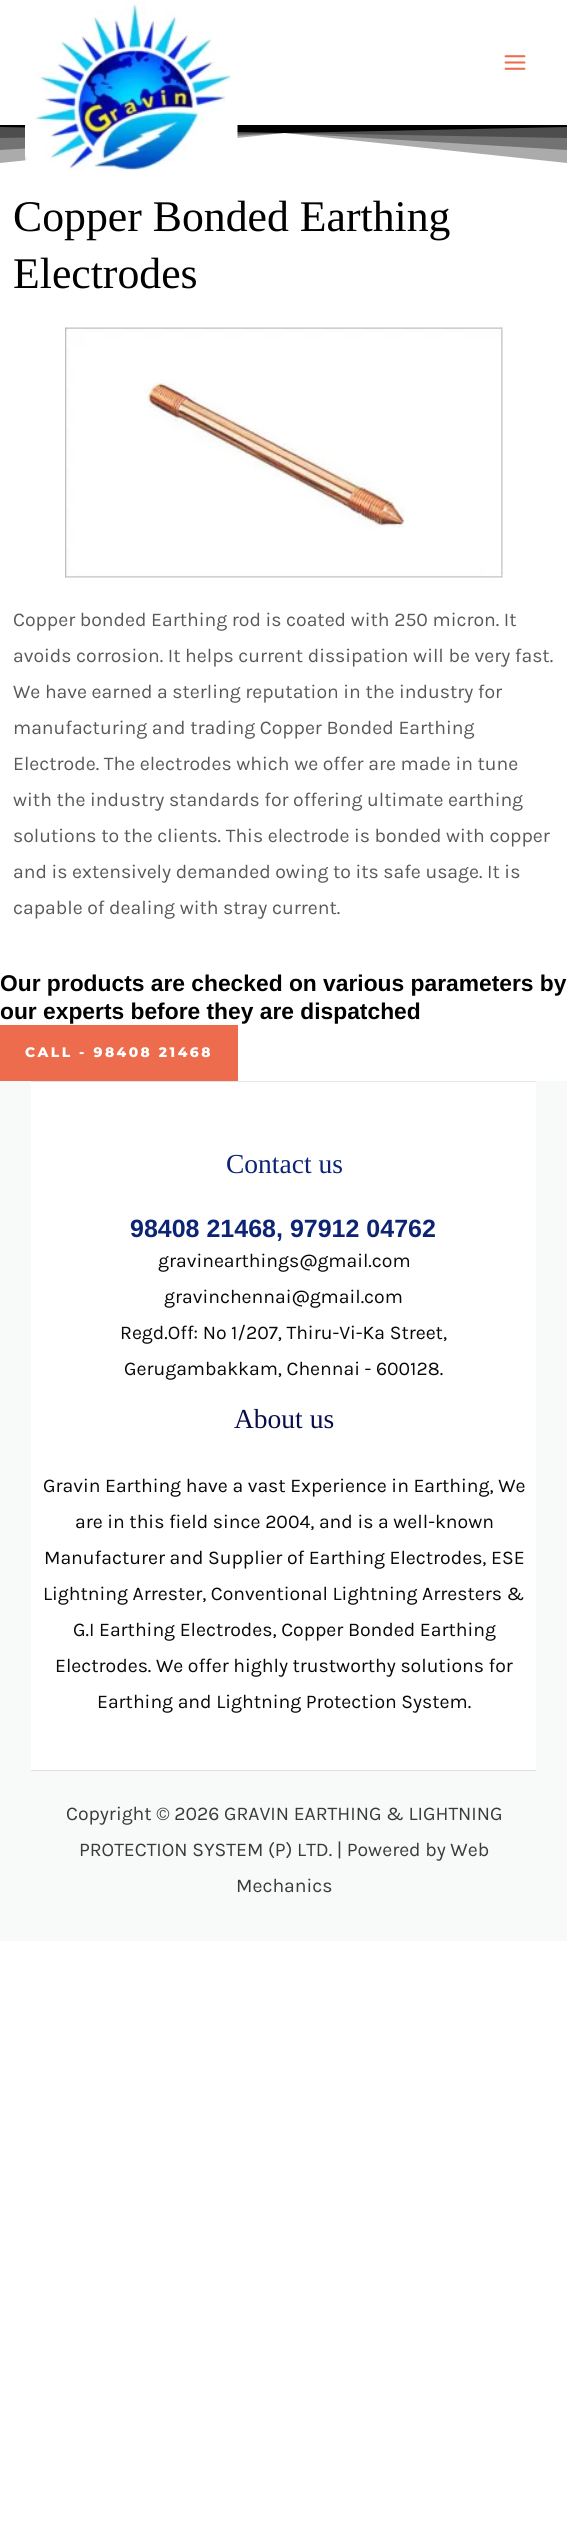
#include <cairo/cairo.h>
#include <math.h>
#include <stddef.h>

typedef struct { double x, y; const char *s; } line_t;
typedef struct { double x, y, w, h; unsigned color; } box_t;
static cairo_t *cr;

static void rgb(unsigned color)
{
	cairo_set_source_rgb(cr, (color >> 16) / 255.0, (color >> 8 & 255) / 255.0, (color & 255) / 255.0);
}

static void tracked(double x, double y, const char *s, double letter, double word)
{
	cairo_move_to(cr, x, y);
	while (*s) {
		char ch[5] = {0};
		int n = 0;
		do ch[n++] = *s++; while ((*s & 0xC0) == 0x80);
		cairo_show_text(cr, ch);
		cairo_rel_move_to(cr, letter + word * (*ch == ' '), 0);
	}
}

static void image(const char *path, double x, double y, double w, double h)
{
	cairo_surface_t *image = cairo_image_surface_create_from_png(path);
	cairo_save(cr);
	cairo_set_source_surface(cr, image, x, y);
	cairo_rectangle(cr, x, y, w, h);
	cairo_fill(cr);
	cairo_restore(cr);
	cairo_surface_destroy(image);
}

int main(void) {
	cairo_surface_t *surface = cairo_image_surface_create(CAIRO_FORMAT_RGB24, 567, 2524);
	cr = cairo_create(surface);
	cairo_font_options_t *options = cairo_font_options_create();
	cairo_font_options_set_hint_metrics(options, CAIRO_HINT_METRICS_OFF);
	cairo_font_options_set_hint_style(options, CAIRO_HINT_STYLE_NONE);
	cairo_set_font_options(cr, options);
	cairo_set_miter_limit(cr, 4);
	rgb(0xffffff);
	cairo_paint(cr);
	rgb(0xababab);
	cairo_new_path(cr);
	cairo_move_to(cr, 0, 125);
	cairo_line_to(cr, 0, 163);
	cairo_line_to(cr, 284, 133);
	cairo_line_to(cr, 567, 163);
	cairo_line_to(cr, 567, 125);
	cairo_close_path(cr);
	cairo_fill(cr);
	cairo_set_source_rgba(cr, 0, 0, 0, 0.33);
	cairo_new_path(cr);
	cairo_move_to(cr, 0, 125);
	cairo_line_to(cr, 0, 150);
	cairo_line_to(cr, 284, 133);
	cairo_line_to(cr, 567, 150);
	cairo_line_to(cr, 567, 125);
	cairo_close_path(cr);
	cairo_fill(cr);
	rgb(0x4d4d4d);
	cairo_new_path(cr);
	cairo_move_to(cr, 0, 125);
	cairo_line_to(cr, 0, 138);
	cairo_line_to(cr, 284, 133);
	cairo_line_to(cr, 567, 138);
	cairo_line_to(cr, 567, 125);
	cairo_close_path(cr);
	cairo_fill(cr);
	rgb(0x000000);
	cairo_new_path(cr);
	cairo_move_to(cr, 0, 125);
	cairo_line_to(cr, 0, 127);
	cairo_line_to(cr, 284, 133);
	cairo_line_to(cr, 567, 127);
	cairo_line_to(cr, 567, 125);
	cairo_close_path(cr);
	cairo_fill(cr);
	image("img/1.png", 25, 1, 213, 170);
	image("img/2.png", 504, 55, 22, 15);
	image("img/3.png", 65, 327, 438, 251);
	{
		static const box_t items[] = {
			{0, 1025, 238, 56, 0xee6c4e},
			{0, 1081, 567, 860, 0xf8f9f9},
			{31, 1082, 505, 688, 0xffffff},
			{31, 1081, 505, 1, 0xe6e6e6},
			{31, 1770, 505, 1, 0xdfe0e0},
		};
		for (size_t i = 0; i < sizeof items / sizeof *items; i++) {
			rgb(items[i].color);
			cairo_rectangle(cr, items[i].x, items[i].y, items[i].w, items[i].h);
			cairo_fill(cr);
		}
	}
	cairo_select_font_face(cr, "Liberation Serif", CAIRO_FONT_SLANT_NORMAL, CAIRO_FONT_WEIGHT_NORMAL);
	cairo_set_font_size(cr, 43.75);
	rgb(0x000000);
	cairo_move_to(cr, 13, 231);
	cairo_show_text(cr, "Copper Bonded Earthing");
	cairo_move_to(cr, 13, 288);
	cairo_show_text(cr, "Electrodes");
	cairo_select_font_face(cr, "Karla", CAIRO_FONT_SLANT_NORMAL, CAIRO_FONT_WEIGHT_NORMAL);
	cairo_set_font_size(cr, 19.4);
	rgb(0x595959);
	{
		static const line_t items[] = {
			{13, 626, "Copper bonded Earthing rod is coated with 250 micron. It"},
			{13, 662, "avoids corrosion. It helps current dissipation will be very fast."},
			{13, 698, "We have earned a sterling reputation in the industry for"},
			{13, 734, "manufacturing and trading Copper Bonded Earthing"},
			{13, 770, "Electrode. The electrodes which we offer are made in tune"},
			{13, 806, "with the industry standards for offering ultimate earthing"},
			{13, 842, "solutions to the clients. This electrode is bonded with copper"},
			{13, 878, "and is extensively demanded owing to its safe usage. It is"},
			{13, 914, "capable of dealing with stray current."},
		};
		for (size_t i = 0; i < sizeof items / sizeof *items; i++) {
			cairo_move_to(cr, items[i].x, items[i].y);
			cairo_show_text(cr, items[i].s);
		}
	}
	cairo_select_font_face(cr, "Liberation Sans", CAIRO_FONT_SLANT_NORMAL, CAIRO_FONT_WEIGHT_BOLD);
	cairo_set_font_size(cr, 22.8);
	rgb(0x000000);
	cairo_move_to(cr, 0, 991);
	cairo_show_text(cr, "Our products are checked on various parameters by");
	cairo_move_to(cr, 0, 1019);
	cairo_show_text(cr, "our experts before they are dispatched");
	cairo_select_font_face(cr, "Montserrat Thin", CAIRO_FONT_SLANT_NORMAL, CAIRO_FONT_WEIGHT_NORMAL);
	cairo_set_font_size(cr, 13.75);
	rgb(0xffffff);
	tracked(25, 1057, "CALL - 98408 21468", 2.5, 0);
	cairo_select_font_face(cr, "Liberation Serif", CAIRO_FONT_SLANT_NORMAL, CAIRO_FONT_WEIGHT_NORMAL);
	cairo_set_font_size(cr, 27.5);
	rgb(0x0c2473);
	cairo_move_to(cr, 226, 1173);
	cairo_show_text(cr, "Contact us");
	cairo_select_font_face(cr, "Liberation Sans", CAIRO_FONT_SLANT_NORMAL, CAIRO_FONT_WEIGHT_BOLD);
	cairo_set_font_size(cr, 25);
	cairo_move_to(cr, 130, 1237);
	cairo_show_text(cr, "98408 21468, 97912 04762");
	cairo_select_font_face(cr, "Karla", CAIRO_FONT_SLANT_NORMAL, CAIRO_FONT_WEIGHT_NORMAL);
	cairo_set_font_size(cr, 19.4);
	rgb(0x090909);
	{
		static const line_t items[] = {
			{158, 1267, "gravinearthings@gmail.com"},
			{164, 1303, "gravinchennai@gmail.com"},
			{120, 1339, "Regd.Off: No 1/207, Thiru-Vi-Ka Street,"},
			{124, 1375, "Gerugambakkam, Chennai - 600128."},
		};
		for (size_t i = 0; i < sizeof items / sizeof *items; i++) {
			cairo_move_to(cr, items[i].x, items[i].y);
			cairo_show_text(cr, items[i].s);
		}
	}
	cairo_select_font_face(cr, "Liberation Serif", CAIRO_FONT_SLANT_NORMAL, CAIRO_FONT_WEIGHT_NORMAL);
	cairo_set_font_size(cr, 27.5);
	rgb(0x080e4d);
	cairo_move_to(cr, 234, 1428);
	cairo_show_text(cr, "About us");
	cairo_select_font_face(cr, "Karla", CAIRO_FONT_SLANT_NORMAL, CAIRO_FONT_WEIGHT_NORMAL);
	cairo_set_font_size(cr, 19.4);
	rgb(0x090909);
	{
		static const line_t items[] = {
			{43, 1492, "Gravin Earthing have a vast Experience in Earthing, We"},
			{75, 1528, "are in this field since 2004, and is a well-known"},
			{44, 1564, "Manufacturer and Supplier of Earthing Electrodes, ESE"},
			{43, 1600, "Lightning Arrester, Conventional Lightning Arresters &"},
			{73, 1636, "G.I Earthing Electrodes, Copper Bonded Earthing"},
			{55, 1672, "Electrodes. We offer highly trustworthy solutions for"},
			{97, 1708, "Earthing and Lightning Protection System."},
		};
		for (size_t i = 0; i < sizeof items / sizeof *items; i++) {
			cairo_move_to(cr, items[i].x, items[i].y);
			cairo_show_text(cr, items[i].s);
		}
	}
	rgb(0x3a3a3a);
	{
		static const line_t items[] = {
			{66, 1820, "Copyright © 2026 GRAVIN EARTHING & LIGHTNING"},
			{79, 1856, "PROTECTION SYSTEM (P) LTD. | Powered by Web"},
			{236, 1892, "Mechanics"},
		};
		for (size_t i = 0; i < sizeof items / sizeof *items; i++) {
			cairo_move_to(cr, items[i].x, items[i].y);
			cairo_show_text(cr, items[i].s);
		}
	}
	cairo_surface_write_to_png(surface, "page.png");
	cairo_font_options_destroy(options);
	cairo_destroy(cr);
	cairo_surface_destroy(surface);
	return 0;
}
